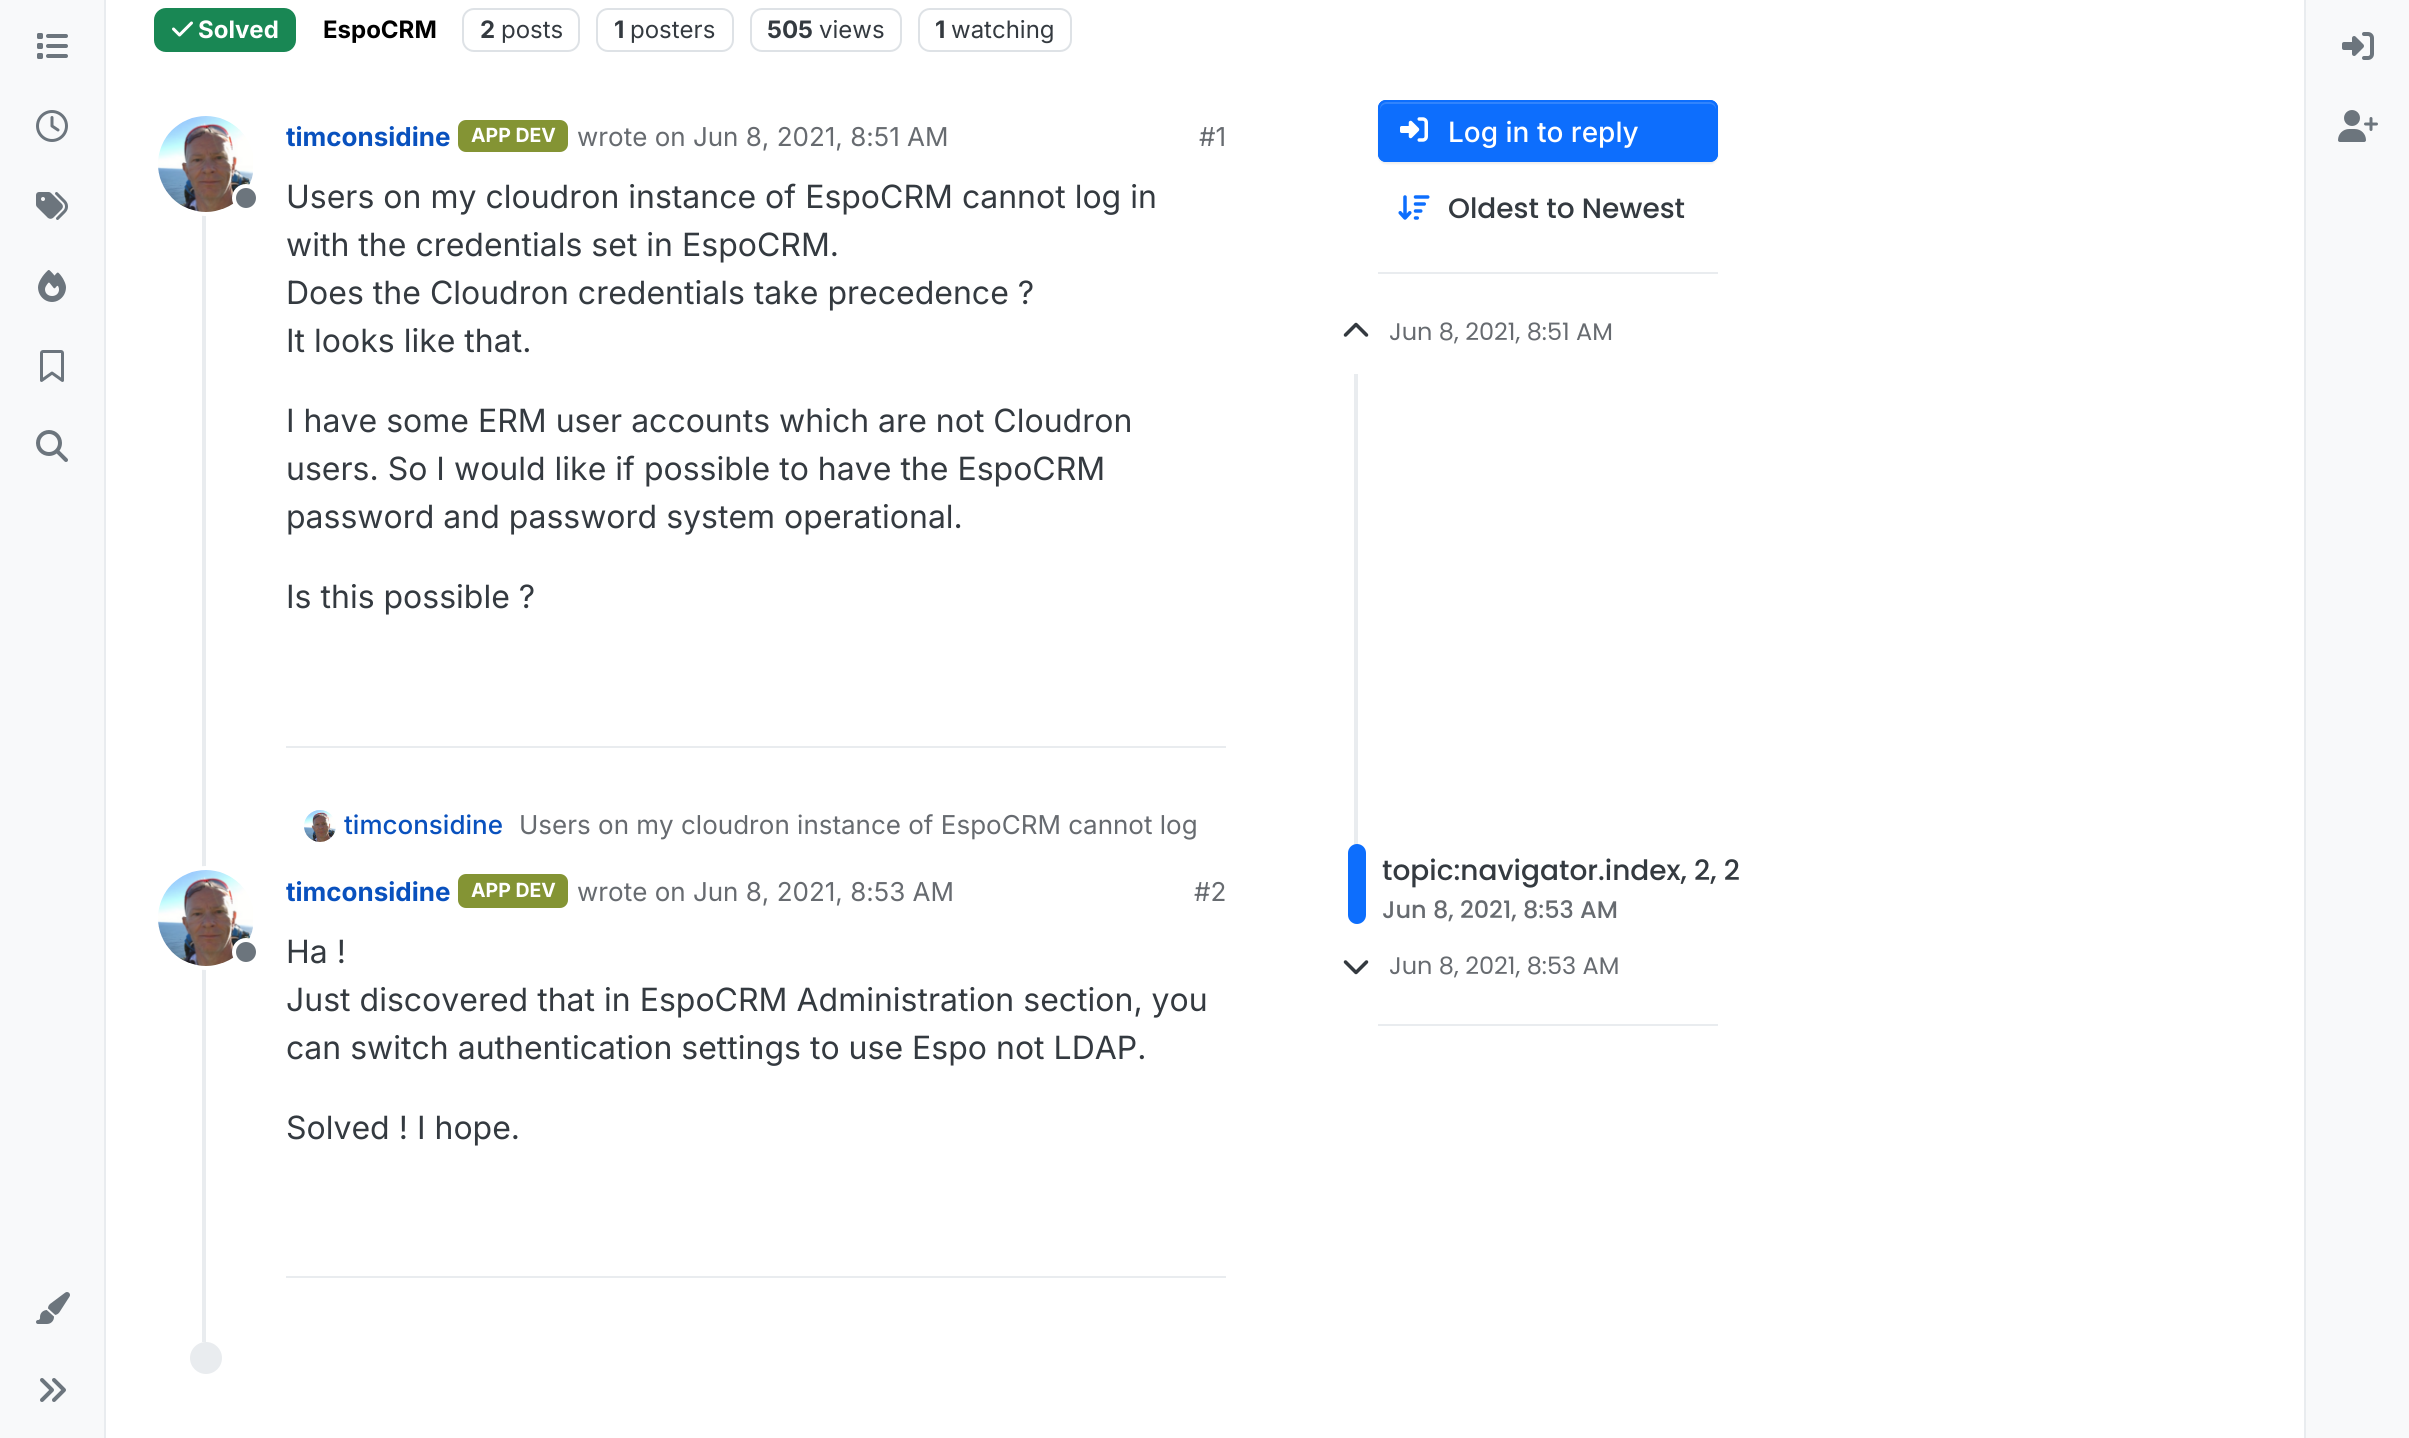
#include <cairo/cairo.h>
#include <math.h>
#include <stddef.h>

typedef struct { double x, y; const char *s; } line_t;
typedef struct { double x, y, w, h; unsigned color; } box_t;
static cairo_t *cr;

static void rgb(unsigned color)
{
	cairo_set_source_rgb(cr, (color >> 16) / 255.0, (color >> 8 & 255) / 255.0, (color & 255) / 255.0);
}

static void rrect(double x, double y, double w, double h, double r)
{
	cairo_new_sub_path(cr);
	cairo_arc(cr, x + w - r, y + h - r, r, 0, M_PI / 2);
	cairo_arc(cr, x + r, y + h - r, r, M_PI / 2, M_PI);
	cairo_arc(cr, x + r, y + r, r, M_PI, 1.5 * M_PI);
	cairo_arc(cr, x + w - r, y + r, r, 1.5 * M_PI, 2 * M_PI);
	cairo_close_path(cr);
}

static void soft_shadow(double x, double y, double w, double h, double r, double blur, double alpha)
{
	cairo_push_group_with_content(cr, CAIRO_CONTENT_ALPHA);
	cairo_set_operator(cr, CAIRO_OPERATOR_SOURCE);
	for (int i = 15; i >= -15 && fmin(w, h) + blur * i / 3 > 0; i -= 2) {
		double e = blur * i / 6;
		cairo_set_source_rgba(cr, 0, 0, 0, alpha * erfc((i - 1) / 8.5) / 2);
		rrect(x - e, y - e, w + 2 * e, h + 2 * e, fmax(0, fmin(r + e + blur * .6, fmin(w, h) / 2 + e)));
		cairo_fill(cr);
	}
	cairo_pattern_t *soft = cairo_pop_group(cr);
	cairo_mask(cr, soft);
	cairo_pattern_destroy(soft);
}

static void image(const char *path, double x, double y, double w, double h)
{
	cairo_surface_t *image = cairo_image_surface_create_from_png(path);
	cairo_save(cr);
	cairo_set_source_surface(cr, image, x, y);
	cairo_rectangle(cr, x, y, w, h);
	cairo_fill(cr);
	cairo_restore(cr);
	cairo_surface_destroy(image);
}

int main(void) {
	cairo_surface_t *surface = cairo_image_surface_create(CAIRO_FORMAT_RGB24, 2409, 1438);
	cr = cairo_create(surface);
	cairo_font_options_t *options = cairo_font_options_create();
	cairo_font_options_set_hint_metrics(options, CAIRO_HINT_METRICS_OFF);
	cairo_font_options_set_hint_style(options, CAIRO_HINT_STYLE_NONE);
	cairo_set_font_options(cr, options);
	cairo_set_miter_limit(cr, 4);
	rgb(0xffffff);
	cairo_paint(cr);
	rgb(0xf8f9fa);
	cairo_rectangle(cr, 0, 0, 104, 1438);
	cairo_fill(cr);
	rgb(0xe9ecef);
	cairo_rectangle(cr, 104, 0, 2, 1438);
	cairo_fill(cr);
	image("img/1.png", 37, 33, 31, 26);
	image("img/2.png", 36, 110, 32, 32);
	image("img/3.png", 36, 192, 32, 28);
	image("img/4.png", 38, 270, 28, 32);
	image("img/5.png", 40, 350, 24, 32);
	image("img/6.png", 36, 430, 32, 32);
	image("img/7.png", 36, 1292, 34, 32);
	image("img/8.png", 40, 1378, 26, 24);
	rgb(0x198754);
	rrect(155, 9, 140, 42, 11);
	cairo_fill_preserve(cr);
	cairo_stroke(cr);
	image("img/9.png", 172, 21, 21, 16);
	rrect(463, 9, 116, 42, 11);
	rgb(0xdee2e6);
	cairo_stroke(cr);
	rrect(597, 9, 136, 42, 11);
	cairo_stroke(cr);
	rrect(751, 9, 150, 42, 11);
	cairo_stroke(cr);
	rrect(919, 9, 152, 42, 11);
	cairo_stroke(cr);
	rgb(0xe9ecef);
	cairo_rectangle(cr, 202, 116, 4, 1226);
	cairo_fill(cr);
	rgb(0xffffff);
	cairo_arc(cr, 206, 164, 50, 0, 2 * M_PI);
	cairo_fill_preserve(cr);
	cairo_set_line_width(cr, 4);
	cairo_stroke(cr);
	image("img/10.png", 158, 116, 95, 96);
	rgb(0x6c757d);
	cairo_arc(cr, 246, 198, 12, 0, 2 * M_PI);
	cairo_fill_preserve(cr);
	rgb(0xffffff);
	cairo_stroke(cr);
	rgb(0x849434);
	rrect(458, 120, 110, 32, 8);
	cairo_fill(cr);
	rgb(0xe9ecef);
	cairo_rectangle(cr, 286, 746, 940, 2);
	cairo_fill(cr);
	image("img/11.png", 304, 810, 32, 32);
	rgb(0xffffff);
	cairo_arc(cr, 206, 918, 50, 0, 2 * M_PI);
	cairo_fill_preserve(cr);
	cairo_stroke(cr);
	image("img/10.png", 158, 870, 95, 96);
	rgb(0x6c757d);
	cairo_arc(cr, 246, 952, 12, 0, 2 * M_PI);
	cairo_fill_preserve(cr);
	rgb(0xffffff);
	cairo_stroke(cr);
	rgb(0x849434);
	rrect(458, 874, 110, 34, 8);
	cairo_fill(cr);
	rgb(0xe9ecef);
	cairo_rectangle(cr, 286, 1276, 940, 2);
	cairo_fill(cr);
	cairo_arc(cr, 206, 1358, 16, 0, 2 * M_PI);
	cairo_fill(cr);
	rgb(0x000000);
	soft_shadow(1378, 102, 340, 62, 8, 1, 0.07);
	rgb(0x0d6efd);
	rrect(1378, 100, 340, 62, 8);
	cairo_fill(cr);
	rgb(0x3184fd);
	cairo_new_path(cr);
	cairo_move_to(cr, 1386, 104);
	cairo_line_to(cr, 1710, 104);
	cairo_curve_to(cr, 1713, 104, 1716, 107, 1716, 110);
	cairo_line_to(cr, 1716, 108);
	cairo_curve_to(cr, 1716, 105, 1713, 102, 1710, 102);
	cairo_line_to(cr, 1386, 102);
	cairo_curve_to(cr, 1383, 102, 1380, 105, 1380, 108);
	cairo_line_to(cr, 1380, 110);
	cairo_curve_to(cr, 1380, 107, 1383, 104, 1386, 104);
	cairo_close_path(cr);
	cairo_fill(cr);
	rrect(1379, 101, 338, 60, 7);
	rgb(0x0d6efd);
	cairo_set_line_width(cr, 2);
	cairo_stroke(cr);
	image("img/12.png", 1400, 117, 28, 25);
	image("img/13.png", 1398, 195, 32, 25);
	rgb(0xe9ecef);
	cairo_rectangle(cr, 1378, 272, 340, 2);
	cairo_fill(cr);
	image("img/14.png", 1343, 322, 26, 15);
	cairo_rectangle(cr, 1354, 374, 4, 550);
	cairo_fill(cr);
	rgb(0x0d6efd);
	rrect(1348, 844, 18, 80, 9);
	cairo_fill(cr);
	image("img/15.png", 1343, 960, 26, 15);
	{
		static const box_t items[] = {
			{1378, 1024, 340, 2, 0xe9ecef},
			{2306, 0, 103, 1438, 0xf8f9fa},
			{2304, 0, 2, 1438, 0xe9ecef},
		};
		for (size_t i = 0; i < sizeof items / sizeof *items; i++) {
			rgb(items[i].color);
			cairo_rectangle(cr, items[i].x, items[i].y, items[i].w, items[i].h);
			cairo_fill(cr);
		}
	}
	image("img/16.png", 2342, 32, 32, 28);
	image("img/17.png", 2338, 110, 40, 32);
	cairo_select_font_face(cr, "Inter", CAIRO_FONT_SLANT_NORMAL, CAIRO_FONT_WEIGHT_BOLD);
	cairo_set_font_size(cr, 24);
	rgb(0xffffff);
	cairo_move_to(cr, 198, 38);
	cairo_show_text(cr, "Solved");
	rgb(0x000000);
	cairo_move_to(cr, 323, 38);
	cairo_show_text(cr, "EspoCRM");
	rgb(0x343a40);
	cairo_move_to(cr, 480, 38);
	cairo_show_text(cr, "2");
	cairo_select_font_face(cr, "Inter", CAIRO_FONT_SLANT_NORMAL, CAIRO_FONT_WEIGHT_NORMAL);
	cairo_move_to(cr, 501, 38);
	cairo_show_text(cr, "posts");
	cairo_select_font_face(cr, "Inter", CAIRO_FONT_SLANT_NORMAL, CAIRO_FONT_WEIGHT_BOLD);
	cairo_move_to(cr, 614, 38);
	cairo_show_text(cr, "1");
	cairo_select_font_face(cr, "Inter", CAIRO_FONT_SLANT_NORMAL, CAIRO_FONT_WEIGHT_NORMAL);
	cairo_move_to(cr, 630, 38);
	cairo_show_text(cr, "posters");
	cairo_select_font_face(cr, "Inter", CAIRO_FONT_SLANT_NORMAL, CAIRO_FONT_WEIGHT_BOLD);
	cairo_move_to(cr, 767, 38);
	cairo_show_text(cr, "505");
	cairo_select_font_face(cr, "Inter", CAIRO_FONT_SLANT_NORMAL, CAIRO_FONT_WEIGHT_NORMAL);
	cairo_move_to(cr, 819, 38);
	cairo_show_text(cr, "views");
	cairo_select_font_face(cr, "Inter", CAIRO_FONT_SLANT_NORMAL, CAIRO_FONT_WEIGHT_BOLD);
	cairo_move_to(cr, 935, 38);
	cairo_show_text(cr, "1");
	cairo_select_font_face(cr, "Inter", CAIRO_FONT_SLANT_NORMAL, CAIRO_FONT_WEIGHT_NORMAL);
	cairo_move_to(cr, 951, 38);
	cairo_show_text(cr, "watching");
	cairo_select_font_face(cr, "Inter", CAIRO_FONT_SLANT_NORMAL, CAIRO_FONT_WEIGHT_BOLD);
	cairo_set_font_size(cr, 26);
	rgb(0x0951be);
	cairo_move_to(cr, 286, 146);
	cairo_show_text(cr, "timconsidine");
	cairo_set_font_size(cr, 19.5);
	rgb(0xffffff);
	cairo_move_to(cr, 471, 142);
	cairo_show_text(cr, "APP DEV");
	cairo_select_font_face(cr, "Inter", CAIRO_FONT_SLANT_NORMAL, CAIRO_FONT_WEIGHT_NORMAL);
	cairo_set_font_size(cr, 26);
	rgb(0x676b70);
	cairo_move_to(cr, 577, 146);
	cairo_show_text(cr, "wrote on Jun 8, 2021, 8:51 AM");
	cairo_move_to(cr, 1199, 146);
	cairo_show_text(cr, "#1");
	cairo_set_font_size(cr, 32);
	rgb(0x343a40);
	{
		static const line_t items[] = {
			{286, 208, "Users on my cloudron instance of EspoCRM cannot log in"},
			{286, 256, "with the credentials set in EspoCRM."},
			{286, 304, "Does the Cloudron credentials take precedence ?"},
			{286, 352, "It looks like that."},
			{286, 432, "I have some ERM user accounts which are not Cloudron"},
			{286, 480, "users. So I would like if possible to have the EspoCRM"},
			{286, 528, "password and password system operational."},
			{286, 608, "Is this possible ?"},
		};
		for (size_t i = 0; i < sizeof items / sizeof *items; i++) {
			cairo_move_to(cr, items[i].x, items[i].y);
			cairo_show_text(cr, items[i].s);
		}
	}
	cairo_select_font_face(cr, "Inter Medium", CAIRO_FONT_SLANT_NORMAL, CAIRO_FONT_WEIGHT_NORMAL);
	cairo_set_font_size(cr, 26);
	rgb(0x0951be);
	cairo_move_to(cr, 344, 834);
	cairo_show_text(cr, "timconsidine");
	cairo_select_font_face(cr, "Inter", CAIRO_FONT_SLANT_NORMAL, CAIRO_FONT_WEIGHT_NORMAL);
	rgb(0x676b70);
	cairo_move_to(cr, 519, 834);
	cairo_show_text(cr, "Users on my cloudron instance of EspoCRM cannot log");
	cairo_select_font_face(cr, "Inter", CAIRO_FONT_SLANT_NORMAL, CAIRO_FONT_WEIGHT_BOLD);
	rgb(0x0951be);
	cairo_move_to(cr, 286, 901);
	cairo_show_text(cr, "timconsidine");
	cairo_set_font_size(cr, 19.5);
	rgb(0xffffff);
	cairo_move_to(cr, 471, 897);
	cairo_show_text(cr, "APP DEV");
	cairo_select_font_face(cr, "Inter", CAIRO_FONT_SLANT_NORMAL, CAIRO_FONT_WEIGHT_NORMAL);
	cairo_set_font_size(cr, 26);
	rgb(0x676b70);
	cairo_move_to(cr, 577, 901);
	cairo_show_text(cr, "wrote on Jun 8, 2021, 8:53 AM");
	cairo_move_to(cr, 1194, 901);
	cairo_show_text(cr, "#2");
	cairo_set_font_size(cr, 32);
	rgb(0x343a40);
	{
		static const line_t items[] = {
			{286, 963, "Ha !"},
			{286, 1011, "Just discovered that in EspoCRM Administration section, you"},
			{286, 1059, "can switch authentication settings to use Espo not LDAP."},
			{286, 1139, "Solved ! I hope."},
		};
		for (size_t i = 0; i < sizeof items / sizeof *items; i++) {
			cairo_move_to(cr, items[i].x, items[i].y);
			cairo_show_text(cr, items[i].s);
		}
	}
	cairo_select_font_face(cr, "Inter Medium", CAIRO_FONT_SLANT_NORMAL, CAIRO_FONT_WEIGHT_NORMAL);
	cairo_set_font_size(cr, 28);
	rgb(0xffffff);
	cairo_move_to(cr, 1448, 142);
	cairo_show_text(cr, "Log in to reply");
	cairo_select_font_face(cr, "Poppins Medium", CAIRO_FONT_SLANT_NORMAL, CAIRO_FONT_WEIGHT_NORMAL);
	rgb(0x343a40);
	cairo_move_to(cr, 1448, 218);
	cairo_show_text(cr, "Oldest to Newest");
	cairo_select_font_face(cr, "Poppins", CAIRO_FONT_SLANT_NORMAL, CAIRO_FONT_WEIGHT_NORMAL);
	cairo_set_font_size(cr, 24);
	rgb(0x676b70);
	cairo_move_to(cr, 1389, 340);
	cairo_show_text(cr, "Jun 8, 2021, 8:51 AM");
	cairo_select_font_face(cr, "Poppins Medium", CAIRO_FONT_SLANT_NORMAL, CAIRO_FONT_WEIGHT_NORMAL);
	cairo_set_font_size(cr, 28);
	rgb(0x343a40);
	cairo_move_to(cr, 1382, 880);
	cairo_show_text(cr, "topic:navigator.index, 2, 2");
	cairo_set_font_size(cr, 24);
	rgb(0x676b70);
	cairo_move_to(cr, 1382, 918);
	cairo_show_text(cr, "Jun 8, 2021, 8:53 AM");
	cairo_select_font_face(cr, "Poppins", CAIRO_FONT_SLANT_NORMAL, CAIRO_FONT_WEIGHT_NORMAL);
	cairo_move_to(cr, 1389, 974);
	cairo_show_text(cr, "Jun 8, 2021, 8:53 AM");
	cairo_surface_write_to_png(surface, "page.png");
	cairo_font_options_destroy(options);
	cairo_destroy(cr);
	cairo_surface_destroy(surface);
	return 0;
}
